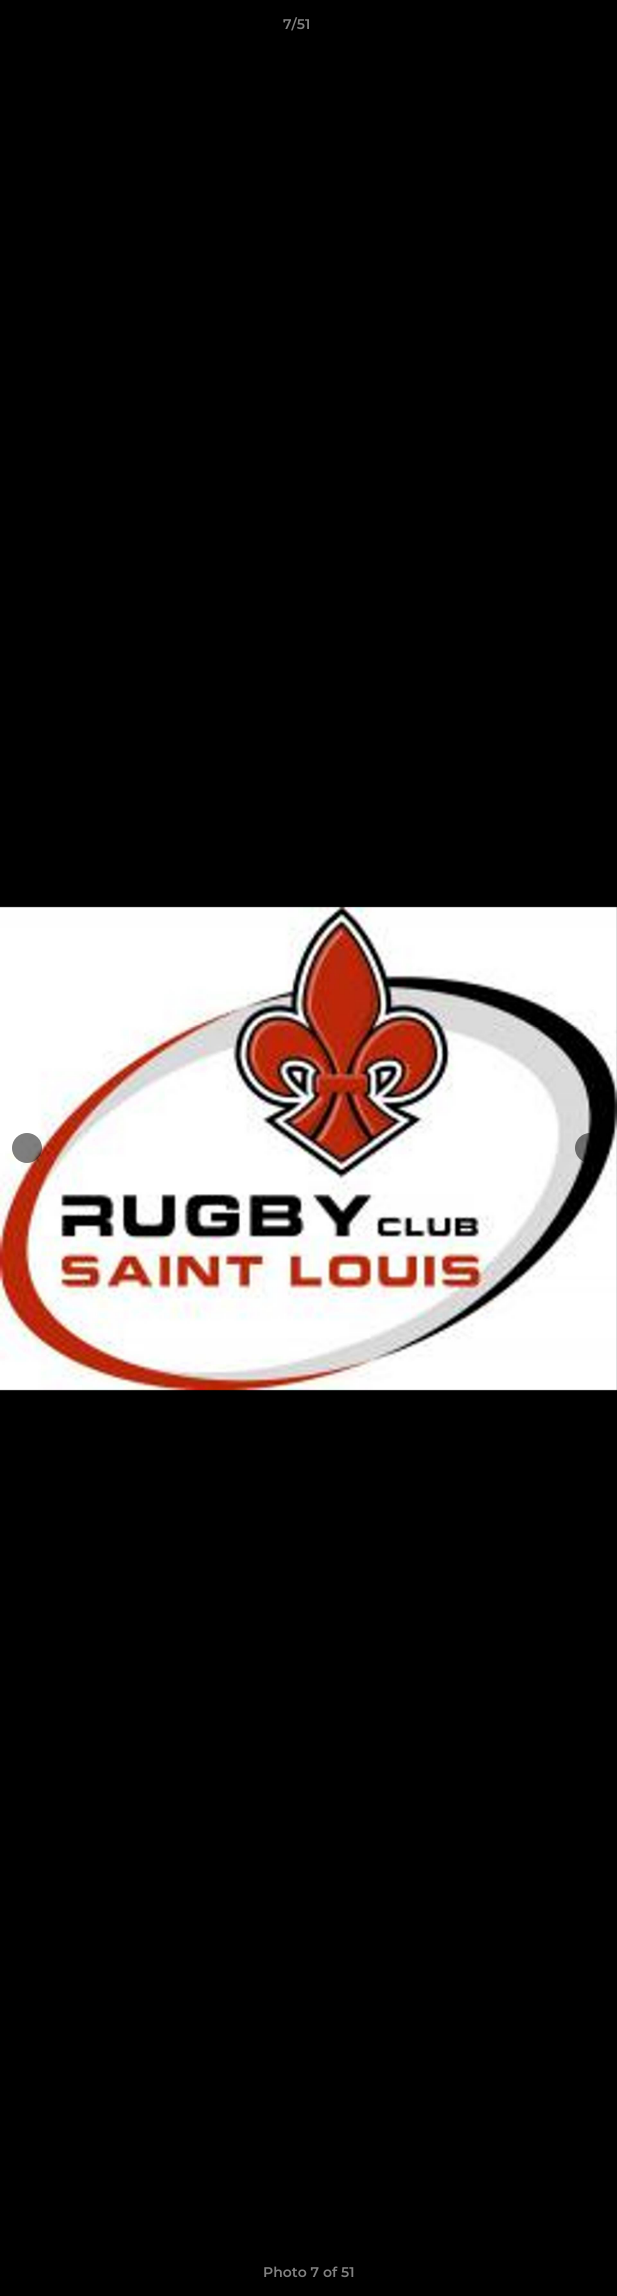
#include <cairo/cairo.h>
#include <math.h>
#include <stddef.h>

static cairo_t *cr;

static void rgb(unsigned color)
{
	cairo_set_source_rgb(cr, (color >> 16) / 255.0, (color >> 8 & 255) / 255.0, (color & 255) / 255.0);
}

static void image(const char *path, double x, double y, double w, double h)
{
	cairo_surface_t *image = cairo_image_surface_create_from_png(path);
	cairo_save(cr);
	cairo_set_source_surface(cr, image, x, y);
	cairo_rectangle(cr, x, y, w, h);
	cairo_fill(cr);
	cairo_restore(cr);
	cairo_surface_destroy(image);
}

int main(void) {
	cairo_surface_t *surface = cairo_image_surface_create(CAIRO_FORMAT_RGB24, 617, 2296);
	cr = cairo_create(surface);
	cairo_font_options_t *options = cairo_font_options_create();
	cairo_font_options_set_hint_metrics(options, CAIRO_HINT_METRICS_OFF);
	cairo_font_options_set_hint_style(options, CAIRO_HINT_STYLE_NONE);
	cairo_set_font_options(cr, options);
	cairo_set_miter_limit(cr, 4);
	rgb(0x000000);
	cairo_paint(cr);
	image("img/1.png", 0, 906, 617, 485);
	cairo_set_source_rgba(cr, 0, 0, 0, 0.5);
	cairo_arc(cr, 27, 1148, 15, 0, 2 * M_PI);
	cairo_fill(cr);
	cairo_arc(cr, 590, 1148, 15, 0, 2 * M_PI);
	cairo_fill(cr);
	cairo_select_font_face(cr, "Montserrat SemiBold", CAIRO_FONT_SLANT_NORMAL, CAIRO_FONT_WEIGHT_NORMAL);
	cairo_set_font_size(cr, 14);
	rgb(0x808080);
	cairo_move_to(cr, 283, 29);
	cairo_show_text(cr, "7/51");
	cairo_move_to(cr, 263, 2277);
	cairo_show_text(cr, "Photo 7 of 51");
	cairo_surface_write_to_png(surface, "page.png");
	cairo_font_options_destroy(options);
	cairo_destroy(cr);
	cairo_surface_destroy(surface);
	return 0;
}
